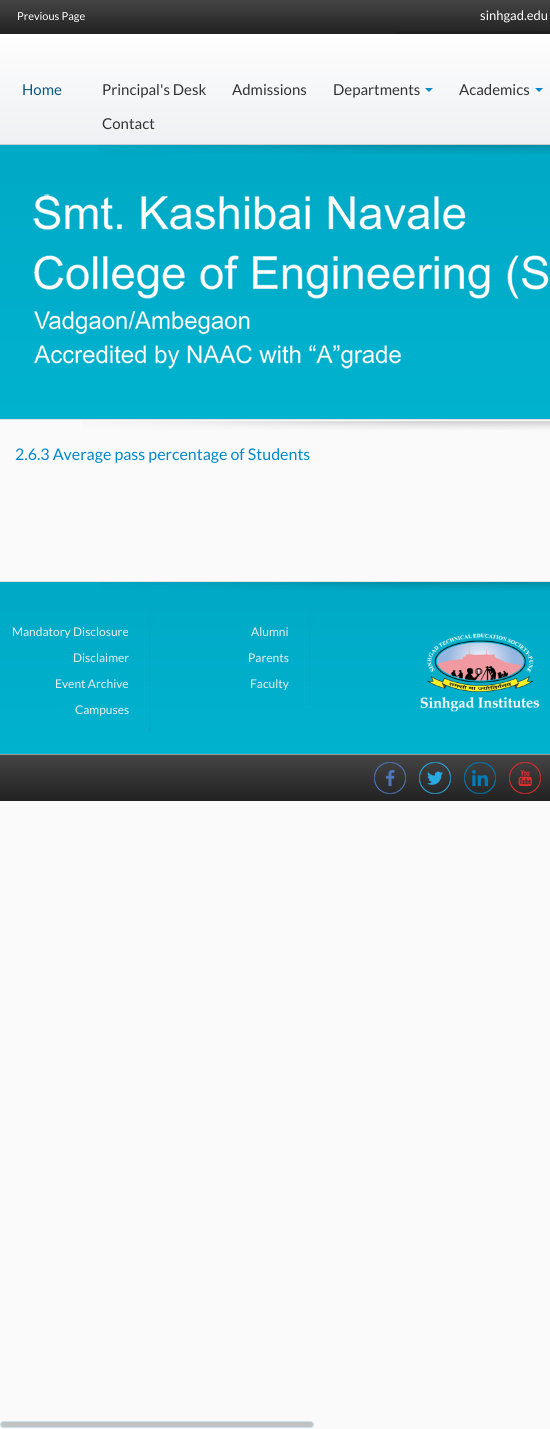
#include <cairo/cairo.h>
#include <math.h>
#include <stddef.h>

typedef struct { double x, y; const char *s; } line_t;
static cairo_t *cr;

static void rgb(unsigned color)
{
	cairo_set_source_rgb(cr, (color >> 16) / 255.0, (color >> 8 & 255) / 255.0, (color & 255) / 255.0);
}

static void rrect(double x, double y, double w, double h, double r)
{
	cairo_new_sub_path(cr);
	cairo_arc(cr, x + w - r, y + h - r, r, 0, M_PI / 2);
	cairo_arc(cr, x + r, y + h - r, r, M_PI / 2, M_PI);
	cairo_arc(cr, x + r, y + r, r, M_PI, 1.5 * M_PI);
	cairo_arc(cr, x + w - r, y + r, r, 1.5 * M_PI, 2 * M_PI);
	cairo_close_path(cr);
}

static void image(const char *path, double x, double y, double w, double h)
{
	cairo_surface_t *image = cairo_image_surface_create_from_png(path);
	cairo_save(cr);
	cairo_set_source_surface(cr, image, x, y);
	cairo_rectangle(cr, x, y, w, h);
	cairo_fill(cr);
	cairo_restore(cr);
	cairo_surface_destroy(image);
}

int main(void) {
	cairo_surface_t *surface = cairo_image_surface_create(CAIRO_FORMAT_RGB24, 550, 1429);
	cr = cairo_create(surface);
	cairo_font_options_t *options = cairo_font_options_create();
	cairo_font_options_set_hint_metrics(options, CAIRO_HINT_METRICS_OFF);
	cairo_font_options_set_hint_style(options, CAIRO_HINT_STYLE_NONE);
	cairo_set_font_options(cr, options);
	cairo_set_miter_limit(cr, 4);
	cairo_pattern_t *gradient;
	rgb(0xfafafa);
	cairo_paint(cr);
	gradient = cairo_pattern_create_linear(480, 0, 480, 34);
	cairo_pattern_add_color_stop_rgba(gradient, 0, 0.267, 0.267, 0.267, 1);
	cairo_pattern_add_color_stop_rgba(gradient, 1, 0.133, 0.133, 0.133, 1);
	cairo_set_source(cr, gradient);
	cairo_pattern_destroy(gradient);
	cairo_rectangle(cr, 0, 0, 550, 34);
	cairo_fill(cr);
	image("img/1.png", 397, 31, 153, 3);
	gradient = cairo_pattern_create_linear(480, 34, 480, 144);
	cairo_pattern_add_color_stop_rgba(gradient, 0, 0.996, 0.996, 0.996, 1);
	cairo_pattern_add_color_stop_rgba(gradient, 1, 0.937, 0.941, 0.953, 1);
	cairo_set_source(cr, gradient);
	cairo_pattern_destroy(gradient);
	cairo_rectangle(cr, 0, 34, 550, 110);
	cairo_fill(cr);
	rgb(0xcccccc);
	cairo_rectangle(cr, 0, 144, 550, 1);
	cairo_fill(cr);
	rgb(0x0088cc);
	cairo_new_path(cr);
	cairo_move_to(cr, 425, 88);
	cairo_line_to(cr, 433, 88);
	cairo_line_to(cr, 429, 92);
	cairo_close_path(cr);
	cairo_fill(cr);
	cairo_new_path(cr);
	cairo_move_to(cr, 535, 88);
	cairo_line_to(cr, 543, 88);
	cairo_line_to(cr, 539, 92);
	cairo_close_path(cr);
	cairo_fill(cr);
	gradient = cairo_pattern_create_linear(480, 140, 480, 419);
	cairo_pattern_add_color_stop_rgba(gradient, 0, 0, 0.663, 0.776, 1);
	cairo_pattern_add_color_stop_rgba(gradient, 1, 0, 0.698, 0.808, 1);
	cairo_set_source(cr, gradient);
	cairo_pattern_destroy(gradient);
	cairo_rectangle(cr, 0, 145, 550, 274);
	cairo_fill(cr);
	image("img/2.png", 99, 145, 451, 9);
	rgb(0xe0e0e0);
	cairo_rectangle(cr, 0, 419, 550, 1);
	cairo_fill(cr);
	image("img/3.png", 33, 194, 516, 175);
	image("img/4.png", 83, 421, 467, 9);
	gradient = cairo_pattern_create_linear(480, 582, 480, 754);
	cairo_pattern_add_color_stop_rgba(gradient, 0, 0, 0.663, 0.776, 1);
	cairo_pattern_add_color_stop_rgba(gradient, 1, 0, 0.698, 0.808, 1);
	cairo_set_source(cr, gradient);
	cairo_pattern_destroy(gradient);
	cairo_rectangle(cr, 0, 582, 550, 172);
	cairo_fill(cr);
	rgb(0xe3e3e3);
	cairo_rectangle(cr, 0, 581, 550, 1);
	cairo_fill(cr);
	image("img/2.png", 99, 582, 451, 9);
	cairo_new_path(cr);
	cairo_move_to(cr, 149.5, 608);
	cairo_line_to(cr, 149.5, 732);
	rgb(0x2c8cbc);
	cairo_set_line_width(cr, 1);
	cairo_set_dash(cr, (double[]){1, 1}, 2, 0);
	cairo_stroke(cr);
	cairo_new_path(cr);
	cairo_move_to(cr, 309.5, 608);
	cairo_line_to(cr, 309.5, 706);
	cairo_stroke(cr);
	image("img/5.png", 420, 633, 120, 79);
	gradient = cairo_pattern_create_linear(480, 755, 480, 801);
	cairo_pattern_add_color_stop_rgba(gradient, 0, 0.267, 0.267, 0.267, 1);
	cairo_pattern_add_color_stop_rgba(gradient, 1, 0.133, 0.133, 0.133, 1);
	cairo_set_source(cr, gradient);
	cairo_pattern_destroy(gradient);
	cairo_rectangle(cr, 0, 755, 550, 46);
	cairo_fill(cr);
	rgb(0x999999);
	cairo_rectangle(cr, 0, 754, 550, 1);
	cairo_fill(cr);
	image("img/6.png", 374, 762, 32, 32);
	image("img/7.png", 419, 762, 32, 32);
	image("img/8.png", 464, 762, 32, 32);
	image("img/9.png", 509, 762, 32, 32);
	rgb(0xc2c2c2);
	rrect(0.5, 1421.5, 313, 6, 3);
	cairo_fill_preserve(cr);
	rgb(0xcce1ec);
	cairo_set_dash(cr, NULL, 0, 0);
	cairo_stroke(cr);
	cairo_select_font_face(cr, "Lato", CAIRO_FONT_SLANT_NORMAL, CAIRO_FONT_WEIGHT_NORMAL);
	cairo_set_font_size(cr, 11);
	rgb(0xffffff);
	cairo_move_to(cr, 17, 20);
	cairo_show_text(cr, "Previous Page");
	cairo_set_font_size(cr, 13);
	cairo_move_to(cr, 480, 20);
	cairo_show_text(cr, "sinhgad.edu");
	cairo_set_font_size(cr, 15);
	rgb(0x075a82);
	cairo_move_to(cr, 22, 95);
	cairo_show_text(cr, "Home");
	rgb(0x333333);
	{
		static const line_t items[] = {
			{102, 95, "Principal's Desk"},
			{232, 95, "Admissions"},
			{333, 95, "Departments"},
			{459, 95, "Academics"},
			{102, 129, "Contact"},
		};
		for (size_t i = 0; i < sizeof items / sizeof *items; i++) {
			cairo_move_to(cr, items[i].x, items[i].y);
			cairo_show_text(cr, items[i].s);
		}
	}
	cairo_set_font_size(cr, 16);
	rgb(0x0088cc);
	cairo_move_to(cr, 15, 460);
	cairo_show_text(cr, "2.6.3 Average pass percentage of Students");
	cairo_set_font_size(cr, 12);
	rgb(0xededed);
	{
		static const line_t items[] = {
			{12, 636, "Mandatory Disclosure"},
			{73, 662, "Disclaimer"},
			{55, 688, "Event Archive"},
			{75, 714, "Campuses"},
			{251, 636, "Alumni"},
			{248, 662, "Parents"},
			{250, 688, "Faculty"},
		};
		for (size_t i = 0; i < sizeof items / sizeof *items; i++) {
			cairo_move_to(cr, items[i].x, items[i].y);
			cairo_show_text(cr, items[i].s);
		}
	}
	cairo_surface_write_to_png(surface, "page.png");
	cairo_font_options_destroy(options);
	cairo_destroy(cr);
	cairo_surface_destroy(surface);
	return 0;
}
